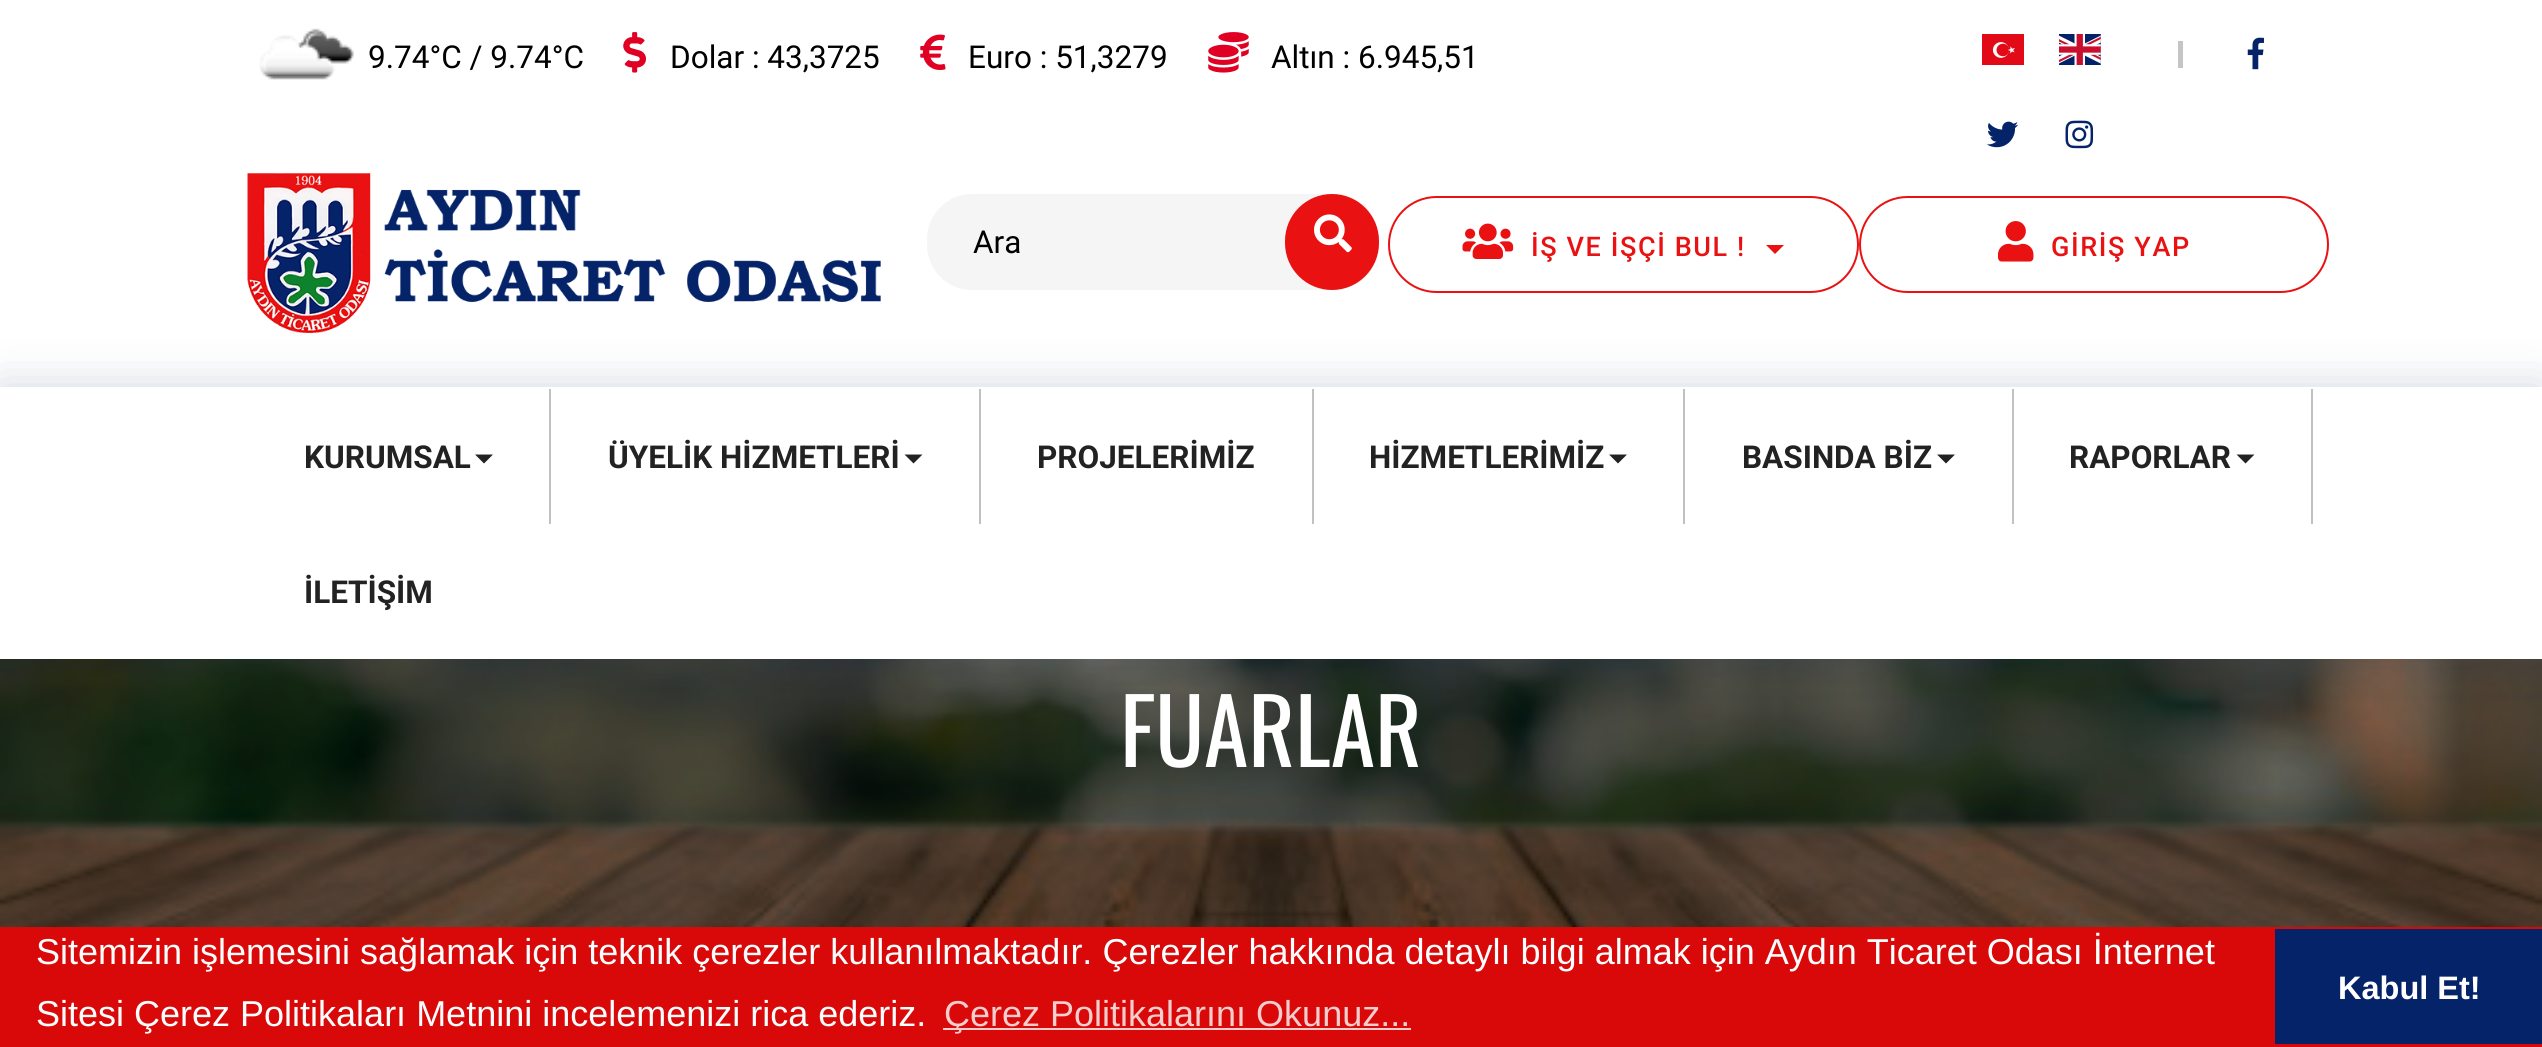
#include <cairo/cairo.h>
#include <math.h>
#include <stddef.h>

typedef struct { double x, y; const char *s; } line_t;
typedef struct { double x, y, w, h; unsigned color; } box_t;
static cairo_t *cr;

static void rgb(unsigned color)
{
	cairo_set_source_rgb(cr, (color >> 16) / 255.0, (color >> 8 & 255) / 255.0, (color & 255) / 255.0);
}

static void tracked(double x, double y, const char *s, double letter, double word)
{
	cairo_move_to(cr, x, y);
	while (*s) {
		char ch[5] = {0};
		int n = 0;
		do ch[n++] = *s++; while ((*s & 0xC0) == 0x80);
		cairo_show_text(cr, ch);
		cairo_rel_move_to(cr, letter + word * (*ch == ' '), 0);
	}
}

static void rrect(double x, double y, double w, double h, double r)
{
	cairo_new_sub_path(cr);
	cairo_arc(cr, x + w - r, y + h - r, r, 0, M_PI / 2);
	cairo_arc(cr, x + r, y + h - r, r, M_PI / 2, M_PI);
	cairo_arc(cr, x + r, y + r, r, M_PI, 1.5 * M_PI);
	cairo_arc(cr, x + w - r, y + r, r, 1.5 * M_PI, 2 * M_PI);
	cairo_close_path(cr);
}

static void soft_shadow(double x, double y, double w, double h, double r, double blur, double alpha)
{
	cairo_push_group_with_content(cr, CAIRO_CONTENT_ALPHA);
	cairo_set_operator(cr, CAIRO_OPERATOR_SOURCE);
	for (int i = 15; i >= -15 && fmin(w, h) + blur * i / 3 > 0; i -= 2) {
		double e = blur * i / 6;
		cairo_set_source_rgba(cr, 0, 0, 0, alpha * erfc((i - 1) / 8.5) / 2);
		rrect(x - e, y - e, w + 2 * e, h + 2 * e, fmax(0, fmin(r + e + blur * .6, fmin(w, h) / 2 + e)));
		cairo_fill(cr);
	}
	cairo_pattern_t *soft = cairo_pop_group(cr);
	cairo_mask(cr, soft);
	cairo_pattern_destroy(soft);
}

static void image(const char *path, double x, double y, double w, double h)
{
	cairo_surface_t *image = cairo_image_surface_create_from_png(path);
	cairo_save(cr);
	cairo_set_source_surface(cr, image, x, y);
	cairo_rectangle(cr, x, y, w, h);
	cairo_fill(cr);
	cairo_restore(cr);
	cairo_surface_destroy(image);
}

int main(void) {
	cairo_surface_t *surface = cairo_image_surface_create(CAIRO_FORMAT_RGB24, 2542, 1047);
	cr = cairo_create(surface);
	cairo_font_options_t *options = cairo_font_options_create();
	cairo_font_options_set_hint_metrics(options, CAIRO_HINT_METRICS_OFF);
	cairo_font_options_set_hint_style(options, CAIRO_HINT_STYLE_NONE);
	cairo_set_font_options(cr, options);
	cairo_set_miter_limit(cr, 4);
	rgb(0xffffff);
	cairo_paint(cr);
	image("img/1.png", 259, 28, 95, 52);
	image("img/2.png", 623, 32, 23, 41);
	image("img/3.png", 920, 34, 26, 36);
	image("img/4.png", 1208, 32, 41, 41);
	image("img/5.png", 1982, 34, 42, 31);
	image("img/6.png", 2059, 34, 42, 31);
	rgb(0xc5c5c5);
	cairo_rectangle(cr, 2178, 41, 5, 27);
	cairo_fill(cr);
	image("img/7.png", 2247, 37, 17, 33);
	image("img/8.png", 1987, 121, 32, 27);
	image("img/9.png", 2065, 120, 29, 29);
	image("img/10.png", 247, 173, 634, 160);
	rgb(0xf5f5f5);
	rrect(927, 194, 452, 96, 45);
	cairo_fill(cr);
	rgb(0xe91112);
	rrect(1285, 194, 94, 96, 47);
	cairo_fill(cr);
	image("img/11.png", 1314, 214, 38, 39);
	rrect(1389, 197, 469, 95, 47.5);
	cairo_stroke(cr);
	image("img/12.png", 1462, 223, 52, 36);
	cairo_new_path(cr);
	cairo_move_to(cr, 1766, 245);
	cairo_line_to(cr, 1784, 245);
	cairo_line_to(cr, 1775, 254);
	cairo_close_path(cr);
	cairo_fill(cr);
	rrect(1860, 197, 468, 95, 47.5);
	cairo_stroke(cr);
	image("img/13.png", 1998, 221, 36, 41);
	image("img/14.png", 0, 659, 2542, 268);
	rgb(0x152f5f);
	soft_shadow(0, 387, 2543, 272, 0, 22.5, 0.2);
	rgb(0xffffff);
	cairo_rectangle(cr, 0, 387, 2542, 272);
	cairo_fill(cr);
	rgb(0xc1c1c1);
	cairo_rectangle(cr, 549, 389, 2, 135);
	cairo_fill(cr);
	rgb(0x222222);
	cairo_new_path(cr);
	cairo_move_to(cr, 475, 454.5);
	cairo_line_to(cr, 493, 454.5);
	cairo_line_to(cr, 484, 463.5);
	cairo_close_path(cr);
	cairo_fill(cr);
	rgb(0xc1c1c1);
	cairo_rectangle(cr, 979, 389, 2, 135);
	cairo_fill(cr);
	rgb(0x222222);
	cairo_new_path(cr);
	cairo_move_to(cr, 904.5, 454.5);
	cairo_line_to(cr, 922.5, 454.5);
	cairo_line_to(cr, 913.5, 463.5);
	cairo_close_path(cr);
	cairo_fill(cr);
	rgb(0xc1c1c1);
	cairo_rectangle(cr, 1312, 389, 2, 135);
	cairo_fill(cr);
	cairo_rectangle(cr, 1683, 389, 2, 135);
	cairo_fill(cr);
	rgb(0x222222);
	cairo_new_path(cr);
	cairo_move_to(cr, 1609, 454.5);
	cairo_line_to(cr, 1627, 454.5);
	cairo_line_to(cr, 1618, 463.5);
	cairo_close_path(cr);
	cairo_fill(cr);
	rgb(0xc1c1c1);
	cairo_rectangle(cr, 2012, 389, 2, 135);
	cairo_fill(cr);
	rgb(0x222222);
	cairo_new_path(cr);
	cairo_move_to(cr, 1937, 454.5);
	cairo_line_to(cr, 1955, 454.5);
	cairo_line_to(cr, 1946, 463.5);
	cairo_close_path(cr);
	cairo_fill(cr);
	rgb(0xc1c1c1);
	cairo_rectangle(cr, 2311, 389, 2, 135);
	cairo_fill(cr);
	rgb(0x222222);
	cairo_new_path(cr);
	cairo_move_to(cr, 2236.5, 454.5);
	cairo_line_to(cr, 2254.5, 454.5);
	cairo_line_to(cr, 2245.5, 463.5);
	cairo_close_path(cr);
	cairo_fill(cr);
	{
		static const box_t items[] = {
			{0, 927, 2542, 120, 0xd90909},
			{943, 1028, 468, 2, 0xf7cece},
			{2275, 929, 267, 115, 0x052369},
		};
		for (size_t i = 0; i < sizeof items / sizeof *items; i++) {
			rgb(items[i].color);
			cairo_rectangle(cr, items[i].x, items[i].y, items[i].w, items[i].h);
			cairo_fill(cr);
		}
	}
	cairo_select_font_face(cr, "Roboto", CAIRO_FONT_SLANT_NORMAL, CAIRO_FONT_WEIGHT_NORMAL);
	cairo_set_font_size(cr, 31.5);
	rgb(0x000000);
	{
		static const line_t items[] = {
			{368, 68, "9.74°C / 9.74°C"},
			{670, 68, "Dolar : 43,3725"},
			{968, 68, "Euro : 51,3279"},
			{1271, 68, "Altın : 6.945,51"},
			{973, 253, "Ara"},
		};
		for (size_t i = 0; i < sizeof items / sizeof *items; i++) {
			cairo_move_to(cr, items[i].x, items[i].y);
			cairo_show_text(cr, items[i].s);
		}
	}
	cairo_select_font_face(cr, "Roboto Medium", CAIRO_FONT_SLANT_NORMAL, CAIRO_FONT_WEIGHT_NORMAL);
	cairo_set_font_size(cr, 27);
	rgb(0xe91112);
	tracked(1531, 256, "İŞ VE İŞÇİ BUL !", 1.6, 0);
	tracked(2051, 256, "GİRİŞ YAP", 1.6, 0);
	cairo_select_font_face(cr, "Roboto", CAIRO_FONT_SLANT_NORMAL, CAIRO_FONT_WEIGHT_BOLD);
	cairo_set_font_size(cr, 31.5);
	rgb(0x222222);
	{
		static const line_t items[] = {
			{304, 468, "KURUMSAL"},
			{608, 468, "ÜYELİK HİZMETLERİ"},
			{1037, 468, "PROJELERİMİZ"},
			{1369, 468, "HİZMETLERİMİZ"},
			{1742, 468, "BASINDA BİZ"},
			{2069, 468, "RAPORLAR"},
			{304, 603, "İLETİŞİM"},
		};
		for (size_t i = 0; i < sizeof items / sizeof *items; i++) {
			cairo_move_to(cr, items[i].x, items[i].y);
			cairo_show_text(cr, items[i].s);
		}
	}
	cairo_select_font_face(cr, "Oswald", CAIRO_FONT_SLANT_NORMAL, CAIRO_FONT_WEIGHT_NORMAL);
	cairo_set_font_size(cr, 90);
	rgb(0xffffff);
	cairo_move_to(cr, 1120, 767);
	cairo_show_text(cr, "FUARLAR");
	cairo_select_font_face(cr, "Liberation Sans", CAIRO_FONT_SLANT_NORMAL, CAIRO_FONT_WEIGHT_NORMAL);
	cairo_set_font_size(cr, 36);
	cairo_move_to(cr, 36, 964);
	cairo_show_text(cr, "Sitemizin işlemesini sağlamak için teknik çerezler kullanılmaktadır. Çerezler hakkında detaylı bilgi almak için Aydın Ticaret Odası İnternet");
	cairo_move_to(cr, 36, 1026);
	cairo_show_text(cr, "Sitesi Çerez Politikaları Metnini incelemenizi rica ederiz.");
	rgb(0xf7cece);
	cairo_move_to(cr, 944, 1026);
	cairo_show_text(cr, "Çerez Politikalarını Okunuz...");
	cairo_select_font_face(cr, "Liberation Sans", CAIRO_FONT_SLANT_NORMAL, CAIRO_FONT_WEIGHT_BOLD);
	cairo_set_font_size(cr, 32.5);
	rgb(0xffffff);
	cairo_move_to(cr, 2338, 999);
	cairo_show_text(cr, "Kabul Et!");
	cairo_surface_write_to_png(surface, "page.png");
	cairo_font_options_destroy(options);
	cairo_destroy(cr);
	cairo_surface_destroy(surface);
	return 0;
}
